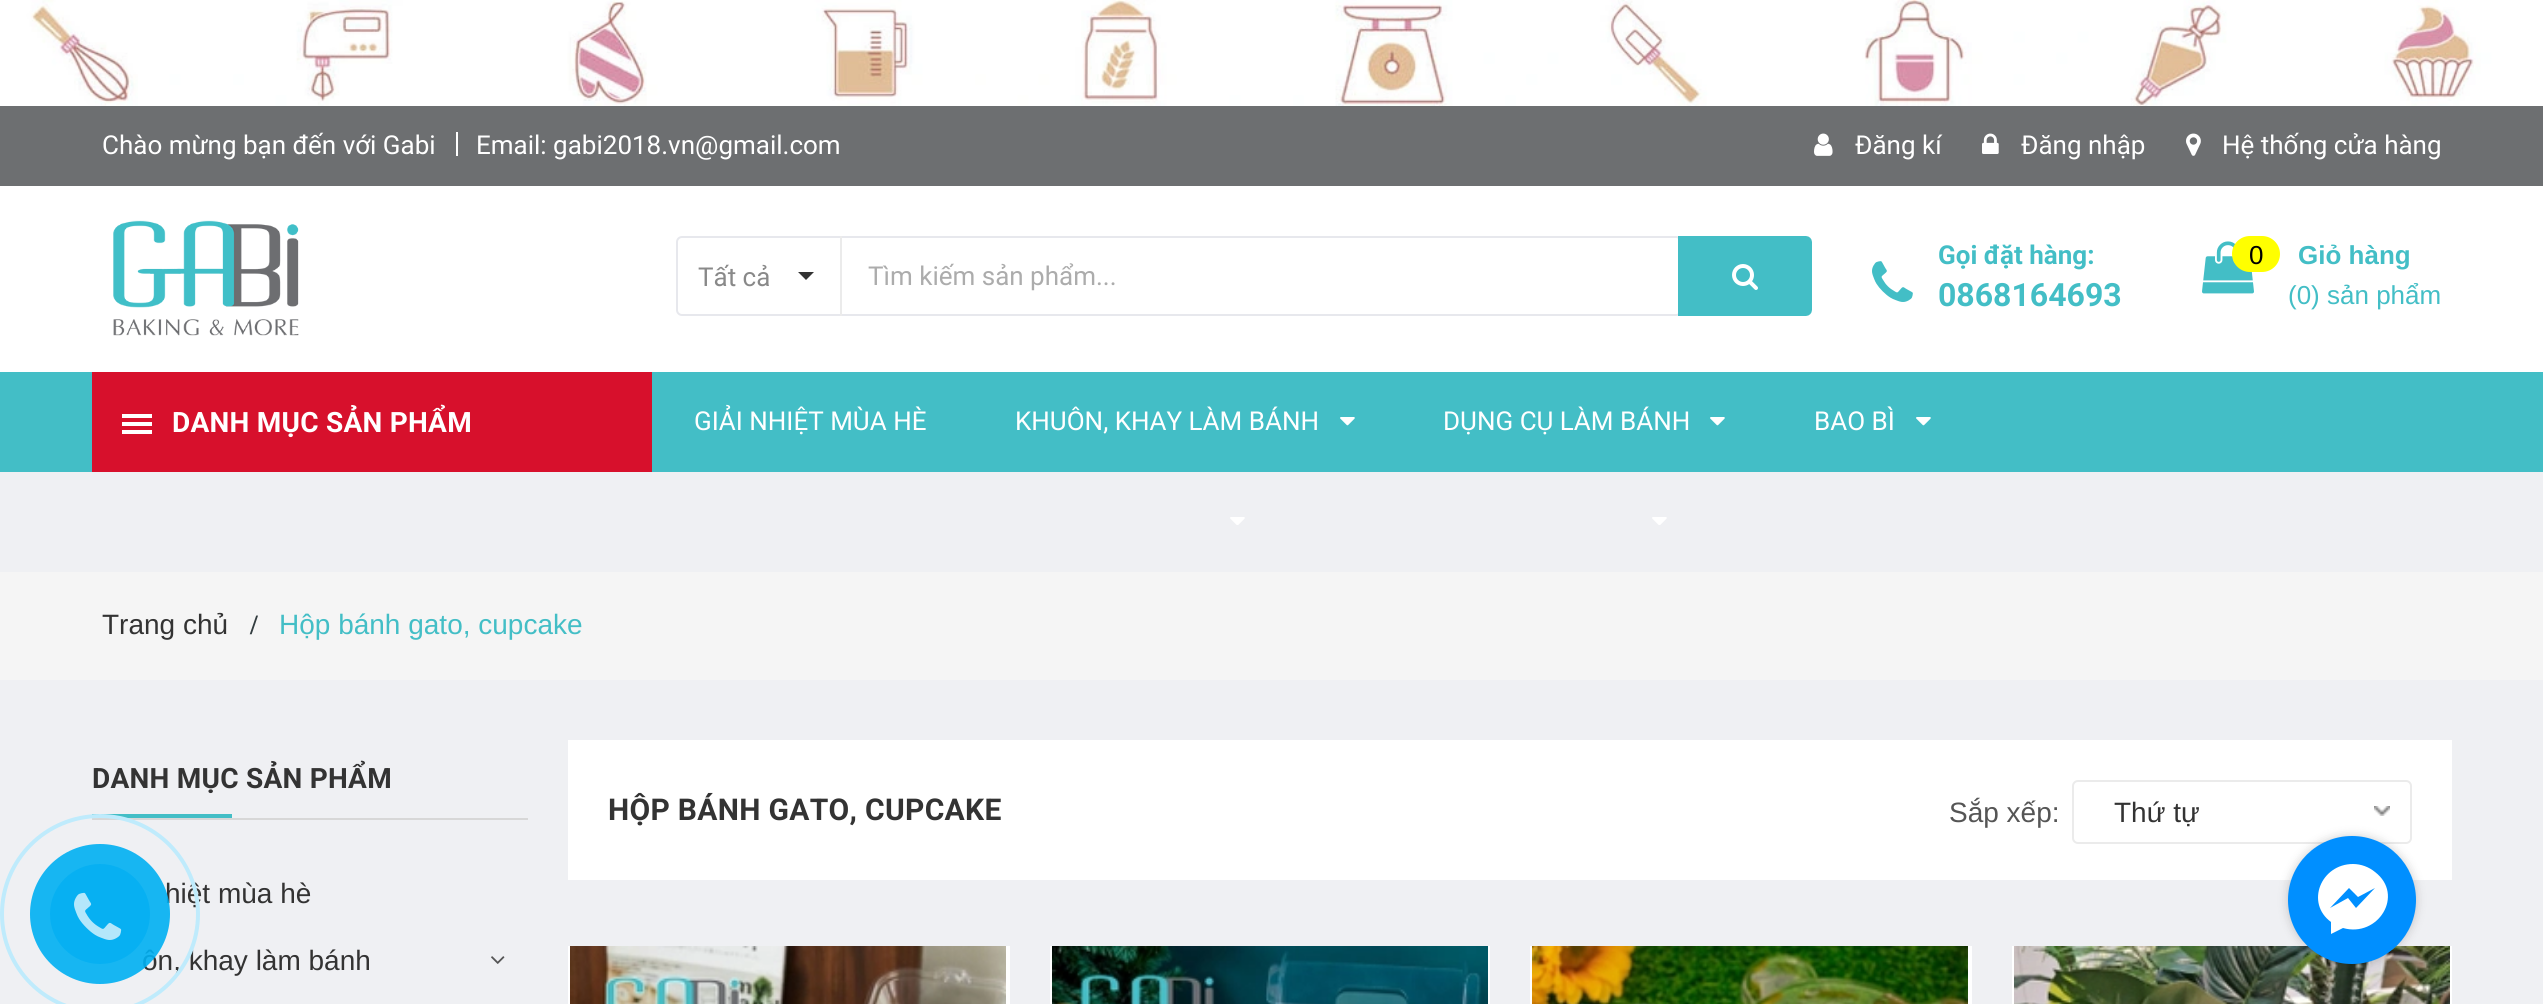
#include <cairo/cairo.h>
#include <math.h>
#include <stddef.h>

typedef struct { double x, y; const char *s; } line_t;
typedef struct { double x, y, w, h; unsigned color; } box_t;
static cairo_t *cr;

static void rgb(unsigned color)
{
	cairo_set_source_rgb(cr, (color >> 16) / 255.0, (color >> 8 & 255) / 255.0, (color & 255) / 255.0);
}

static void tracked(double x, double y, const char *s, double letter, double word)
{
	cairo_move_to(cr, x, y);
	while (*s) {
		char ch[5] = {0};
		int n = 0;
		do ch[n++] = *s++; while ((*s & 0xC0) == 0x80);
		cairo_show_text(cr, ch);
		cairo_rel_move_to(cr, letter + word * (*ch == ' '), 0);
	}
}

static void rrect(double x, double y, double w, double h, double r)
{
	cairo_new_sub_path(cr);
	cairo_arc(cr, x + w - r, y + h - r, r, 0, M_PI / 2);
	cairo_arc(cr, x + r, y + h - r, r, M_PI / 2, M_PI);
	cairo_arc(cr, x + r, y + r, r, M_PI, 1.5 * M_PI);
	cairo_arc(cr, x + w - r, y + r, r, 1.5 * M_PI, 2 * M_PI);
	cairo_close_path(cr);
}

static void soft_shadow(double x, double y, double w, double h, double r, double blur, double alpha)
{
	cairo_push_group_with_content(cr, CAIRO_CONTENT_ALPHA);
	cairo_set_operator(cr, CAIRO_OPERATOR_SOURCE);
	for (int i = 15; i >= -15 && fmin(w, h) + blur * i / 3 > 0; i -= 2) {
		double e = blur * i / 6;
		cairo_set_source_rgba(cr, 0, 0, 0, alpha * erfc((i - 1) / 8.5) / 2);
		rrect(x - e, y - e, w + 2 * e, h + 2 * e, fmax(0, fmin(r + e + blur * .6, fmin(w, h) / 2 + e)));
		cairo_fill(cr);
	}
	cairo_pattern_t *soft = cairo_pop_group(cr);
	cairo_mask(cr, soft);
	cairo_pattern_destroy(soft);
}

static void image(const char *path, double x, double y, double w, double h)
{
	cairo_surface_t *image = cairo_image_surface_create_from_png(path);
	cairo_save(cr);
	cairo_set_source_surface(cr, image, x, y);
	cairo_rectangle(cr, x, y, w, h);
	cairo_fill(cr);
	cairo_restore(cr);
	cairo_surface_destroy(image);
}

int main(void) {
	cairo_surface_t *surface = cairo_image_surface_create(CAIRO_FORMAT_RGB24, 2543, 1004);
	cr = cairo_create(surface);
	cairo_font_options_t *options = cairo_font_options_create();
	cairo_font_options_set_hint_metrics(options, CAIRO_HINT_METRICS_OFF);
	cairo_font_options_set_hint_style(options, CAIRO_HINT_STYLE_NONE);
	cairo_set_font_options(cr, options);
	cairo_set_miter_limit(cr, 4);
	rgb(0xeff0f3);
	cairo_paint(cr);
	image("img/1.png", 0, 0, 2543, 106);
	rgb(0x6d6f71);
	cairo_rectangle(cr, 0, 106, 2543, 80);
	cairo_fill(cr);
	rgb(0xffffff);
	cairo_rectangle(cr, 456, 132, 2, 24);
	cairo_fill(cr);
	image("img/2.png", 1814, 133, 19, 23);
	image("img/3.png", 1982, 133, 17, 21);
	image("img/4.png", 2186, 133, 15, 23);
	cairo_rectangle(cr, 0, 186, 2543, 186);
	cairo_fill(cr);
	image("img/5.png", 113, 220, 186, 116);
	rrect(677, 237, 1004, 78, 5);
	rgb(0xe7e8ed);
	cairo_stroke(cr);
	rgb(0xebebeb);
	cairo_rectangle(cr, 840, 236, 2, 80);
	cairo_fill(cr);
	rgb(0x333333);
	cairo_new_path(cr);
	cairo_move_to(cr, 798, 272);
	cairo_line_to(cr, 814, 272);
	cairo_line_to(cr, 806, 280);
	cairo_close_path(cr);
	cairo_fill(cr);
	cairo_new_path(cr);
	cairo_move_to(cr, 1682, 240);
	cairo_line_to(cr, 1806, 240);
	cairo_curve_to(cr, 1807, 240, 1808, 241, 1808, 242);
	cairo_line_to(cr, 1808, 310);
	cairo_curve_to(cr, 1808, 311, 1807, 312, 1806, 312);
	cairo_line_to(cr, 1682, 312);
	cairo_close_path(cr);
	rgb(0x43bec6);
	cairo_set_line_width(cr, 8);
	cairo_stroke(cr);
	cairo_rectangle(cr, 1686, 244, 118, 64);
	cairo_fill(cr);
	image("img/6.png", 1732, 264, 26, 26);
	image("img/7.png", 1872, 261, 41, 41);
	image("img/8.png", 2202, 241, 52, 53);
	rgb(0xffff00);
	rrect(2232, 236, 48, 36, 18);
	cairo_fill(cr);
	{
		static const box_t items[] = {
			{0, 372, 2543, 100, 0x43bec6},
			{92, 372, 560, 100, 0xd7102c},
			{122, 422, 30, 4, 0xffffff},
			{122, 414, 30, 4, 0xffffff},
			{122, 430, 30, 4, 0xffffff},
		};
		for (size_t i = 0; i < sizeof items / sizeof *items; i++) {
			rgb(items[i].color);
			cairo_rectangle(cr, items[i].x, items[i].y, items[i].w, items[i].h);
			cairo_fill(cr);
		}
	}
	image("img/9.png", 1340, 417, 15, 9);
	image("img/9.png", 1710, 417, 15, 9);
	image("img/9.png", 1916, 417, 15, 9);
	image("img/10.png", 1230, 517, 15, 8);
	image("img/10.png", 1652, 517, 15, 8);
	{
		static const box_t items[] = {
			{0, 572, 2543, 108, 0xf5f5f5},
			{92, 818, 436, 2, 0xd7d7d7},
			{92, 814, 140, 4, 0x43bec6},
		};
		for (size_t i = 0; i < sizeof items / sizeof *items; i++) {
			rgb(items[i].color);
			cairo_rectangle(cr, items[i].x, items[i].y, items[i].w, items[i].h);
			cairo_fill(cr);
		}
	}
	image("img/11.png", 491, 956, 14, 8);
	rgb(0xffffff);
	cairo_rectangle(cr, 568, 740, 1884, 140);
	cairo_fill(cr);
	image("img/12.png", 2374, 806, 16, 10);
	rrect(2073, 781, 338, 62, 5);
	rgb(0xebebeb);
	cairo_set_line_width(cr, 2);
	cairo_stroke(cr);
	rgb(0xffffff);
	cairo_rectangle(cr, 568, 946, 442, 58);
	cairo_fill(cr);
	image("img/13.png", 570, 946, 436, 58);
	cairo_rectangle(cr, 1050, 946, 440, 58);
	cairo_fill(cr);
	image("img/14.png", 1052, 946, 436, 58);
	cairo_rectangle(cr, 1530, 946, 442, 58);
	cairo_fill(cr);
	image("img/15.png", 1532, 946, 436, 58);
	cairo_rectangle(cr, 2012, 946, 440, 58);
	cairo_fill(cr);
	image("img/16.png", 2014, 946, 436, 58);
	rgb(0x000000);
	soft_shadow(2288, 836, 128, 128, 64, 5, 0.2);
	rgb(0x008fff);
	cairo_arc(cr, 2352, 900, 64, 0, 2 * M_PI);
	cairo_fill(cr);
	rgb(0xffffff);
	cairo_new_path(cr);
	cairo_move_to(cr, 2353, 864);
	cairo_curve_to(cr, 2321, 864, 2305, 903, 2331, 922);
	cairo_line_to(cr, 2331, 934);
	cairo_line_to(cr, 2343, 928);
	cairo_curve_to(cr, 2378, 938, 2405, 895, 2375, 872);
	cairo_curve_to(cr, 2369, 867, 2361, 864, 2353, 864);
	cairo_close_path(cr);
	cairo_move_to(cr, 2356, 908);
	cairo_line_to(cr, 2348, 898);
	cairo_line_to(cr, 2330, 908);
	cairo_line_to(cr, 2349, 888);
	cairo_line_to(cr, 2358, 897);
	cairo_line_to(cr, 2375, 888);
	cairo_close_path(cr);
	cairo_fill(cr);
	cairo_select_font_face(cr, "Roboto", CAIRO_FONT_SLANT_NORMAL, CAIRO_FONT_WEIGHT_NORMAL);
	cairo_set_font_size(cr, 26);
	{
		static const line_t items[] = {
			{102, 154, "Chào mừng bạn đến với Gabi"},
			{476, 154, "Email: gabi2018.vn@gmail.com"},
			{1855, 154, "Đăng kí"},
			{2021, 154, "Đăng nhập"},
			{2222, 154, "Hệ thống cửa hàng"},
		};
		for (size_t i = 0; i < sizeof items / sizeof *items; i++) {
			cairo_move_to(cr, items[i].x, items[i].y);
			cairo_show_text(cr, items[i].s);
		}
	}
	rgb(0x898989);
	cairo_move_to(cr, 698, 286);
	cairo_show_text(cr, "Tất cả");
	rgb(0xacacac);
	cairo_move_to(cr, 868, 285);
	cairo_show_text(cr, "Tìm kiếm sản phẩm...");
	cairo_select_font_face(cr, "Roboto", CAIRO_FONT_SLANT_NORMAL, CAIRO_FONT_WEIGHT_BOLD);
	rgb(0x43bec6);
	cairo_move_to(cr, 1938, 264);
	cairo_show_text(cr, "Gọi đặt hàng:");
	cairo_set_font_size(cr, 32);
	cairo_move_to(cr, 1938, 306);
	cairo_show_text(cr, "0868164693");
	cairo_select_font_face(cr, "Liberation Sans", CAIRO_FONT_SLANT_NORMAL, CAIRO_FONT_WEIGHT_NORMAL);
	cairo_set_font_size(cr, 26);
	rgb(0x000000);
	cairo_move_to(cr, 2249, 264);
	cairo_show_text(cr, "0");
	cairo_select_font_face(cr, "Liberation Sans", CAIRO_FONT_SLANT_NORMAL, CAIRO_FONT_WEIGHT_BOLD);
	rgb(0x43bec6);
	cairo_move_to(cr, 2298, 264);
	cairo_show_text(cr, "Giỏ hàng");
	cairo_select_font_face(cr, "Liberation Sans", CAIRO_FONT_SLANT_NORMAL, CAIRO_FONT_WEIGHT_NORMAL);
	cairo_move_to(cr, 2288, 304);
	cairo_show_text(cr, "(0) sản phẩm");
	cairo_select_font_face(cr, "Roboto", CAIRO_FONT_SLANT_NORMAL, CAIRO_FONT_WEIGHT_BOLD);
	cairo_set_font_size(cr, 28);
	rgb(0xffffff);
	tracked(172, 432, "DANH MỤC SẢN PHẨM", 0.25, 0);
	cairo_select_font_face(cr, "Roboto", CAIRO_FONT_SLANT_NORMAL, CAIRO_FONT_WEIGHT_NORMAL);
	cairo_set_font_size(cr, 26);
	{
		static const line_t items[] = {
			{694, 430, "GIẢI NHIỆT MÙA HÈ"},
			{1015, 430, "KHUÔN, KHAY LÀM BÁNH"},
			{1443, 430, "DỤNG CỤ LÀM BÁNH"},
			{1814, 430, "BAO BÌ"},
		};
		for (size_t i = 0; i < sizeof items / sizeof *items; i++) {
			cairo_move_to(cr, items[i].x, items[i].y);
			cairo_show_text(cr, items[i].s);
		}
	}
	cairo_select_font_face(cr, "Liberation Sans", CAIRO_FONT_SLANT_NORMAL, CAIRO_FONT_WEIGHT_NORMAL);
	cairo_set_font_size(cr, 28);
	rgb(0x333333);
	cairo_move_to(cr, 102, 634);
	cairo_show_text(cr, "Trang chủ");
	cairo_select_font_face(cr, "Liberation Serif", CAIRO_FONT_SLANT_NORMAL, CAIRO_FONT_WEIGHT_BOLD);
	rgb(0x323c3f);
	cairo_move_to(cr, 250, 634);
	cairo_show_text(cr, "/");
	cairo_select_font_face(cr, "Liberation Sans", CAIRO_FONT_SLANT_NORMAL, CAIRO_FONT_WEIGHT_NORMAL);
	rgb(0x43bec6);
	cairo_move_to(cr, 279, 634);
	cairo_show_text(cr, "Hộp bánh gato, cupcake");
	cairo_select_font_face(cr, "Roboto", CAIRO_FONT_SLANT_NORMAL, CAIRO_FONT_WEIGHT_BOLD);
	rgb(0x333333);
	tracked(92, 788, "DANH MỤC SẢN PHẨM", 0.25, 0);
	cairo_select_font_face(cr, "Liberation Sans", CAIRO_FONT_SLANT_NORMAL, CAIRO_FONT_WEIGHT_NORMAL);
	cairo_move_to(cr, 165, 903);
	cairo_show_text(cr, "hiệt mùa hè");
	cairo_move_to(cr, 142, 970);
	cairo_show_text(cr, "ôn, khay làm bánh");
	cairo_select_font_face(cr, "Roboto", CAIRO_FONT_SLANT_NORMAL, CAIRO_FONT_WEIGHT_BOLD);
	cairo_set_font_size(cr, 30);
	tracked(608, 820, "HỘP BÁNH GATO, CUPCAKE", 0.3, 0);
	cairo_select_font_face(cr, "Liberation Sans", CAIRO_FONT_SLANT_NORMAL, CAIRO_FONT_WEIGHT_NORMAL);
	cairo_set_font_size(cr, 28);
	rgb(0x555555);
	cairo_move_to(cr, 1949, 822);
	cairo_show_text(cr, "Sắp xếp:");
	rgb(0x333333);
	cairo_move_to(cr, 2114, 822);
	cairo_show_text(cr, "Thứ tự");
	cairo_new_path(cr);
	cairo_arc(cr, 100, 914, 98, 0, 2 * M_PI);
	rgb(0xbfebfc);
	cairo_set_line_width(cr, 4);
	cairo_stroke(cr);
	cairo_set_source_rgba(cr, 0, 0.686, 0.949, 0.9);
	cairo_arc(cr, 100, 914, 70, 0, 2 * M_PI);
	cairo_fill(cr);
	cairo_set_source_rgba(cr, 0, 0.686, 0.949, 0.7);
	cairo_arc(cr, 100, 914, 50, 0, 2 * M_PI);
	cairo_fill(cr);
	image("img/17.png", 74, 892, 48, 48);
	cairo_surface_write_to_png(surface, "page.png");
	cairo_font_options_destroy(options);
	cairo_destroy(cr);
	cairo_surface_destroy(surface);
	return 0;
}
